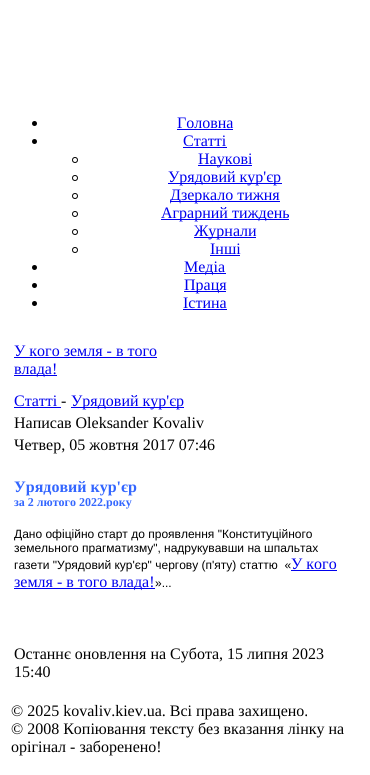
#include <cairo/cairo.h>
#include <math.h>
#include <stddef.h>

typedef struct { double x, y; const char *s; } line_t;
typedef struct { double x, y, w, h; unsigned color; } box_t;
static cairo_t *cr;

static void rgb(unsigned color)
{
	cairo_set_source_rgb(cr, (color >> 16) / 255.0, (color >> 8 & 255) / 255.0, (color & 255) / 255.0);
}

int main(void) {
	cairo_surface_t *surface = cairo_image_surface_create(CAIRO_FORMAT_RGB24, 370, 775);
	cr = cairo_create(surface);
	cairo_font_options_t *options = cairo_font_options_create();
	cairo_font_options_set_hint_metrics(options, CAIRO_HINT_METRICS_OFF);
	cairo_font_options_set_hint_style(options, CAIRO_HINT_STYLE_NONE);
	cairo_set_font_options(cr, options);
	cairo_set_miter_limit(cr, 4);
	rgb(0xffffff);
	cairo_paint(cr);
	rgb(0x000000);
	cairo_arc(cr, 34.5, 123.5, 2.5, 0, 2 * M_PI);
	cairo_fill(cr);
	rgb(0x0000ee);
	cairo_rectangle(cr, 177, 129, 56, 1);
	cairo_fill(cr);
	rgb(0x000000);
	cairo_arc(cr, 34.5, 141.5, 2.5, 0, 2 * M_PI);
	cairo_fill(cr);
	rgb(0x0000ee);
	cairo_rectangle(cr, 183, 147, 44, 1);
	cairo_fill(cr);
	cairo_arc(cr, 75, 160, 2.5, 0, 2 * M_PI);
	rgb(0x000000);
	cairo_set_line_width(cr, 1);
	cairo_stroke(cr);
	rgb(0x0000ee);
	cairo_rectangle(cr, 198, 165, 54, 1);
	cairo_fill(cr);
	cairo_arc(cr, 75, 178, 2.5, 0, 2 * M_PI);
	rgb(0x000000);
	cairo_stroke(cr);
	rgb(0x0000ee);
	cairo_rectangle(cr, 168, 183, 114, 1);
	cairo_fill(cr);
	cairo_arc(cr, 75, 196, 2.5, 0, 2 * M_PI);
	rgb(0x000000);
	cairo_stroke(cr);
	rgb(0x0000ee);
	cairo_rectangle(cr, 170, 201, 110, 1);
	cairo_fill(cr);
	cairo_arc(cr, 75, 214, 2.5, 0, 2 * M_PI);
	rgb(0x000000);
	cairo_stroke(cr);
	rgb(0x0000ee);
	cairo_rectangle(cr, 161, 219, 128, 1);
	cairo_fill(cr);
	cairo_arc(cr, 75, 232, 2.5, 0, 2 * M_PI);
	rgb(0x000000);
	cairo_stroke(cr);
	rgb(0x0000ee);
	cairo_rectangle(cr, 194, 237, 62, 1);
	cairo_fill(cr);
	cairo_arc(cr, 75, 250, 2.5, 0, 2 * M_PI);
	rgb(0x000000);
	cairo_stroke(cr);
	rgb(0x0000ee);
	cairo_rectangle(cr, 210, 255, 30, 1);
	cairo_fill(cr);
	rgb(0x000000);
	cairo_arc(cr, 34.5, 267.5, 2.5, 0, 2 * M_PI);
	cairo_fill(cr);
	rgb(0x0000ee);
	cairo_rectangle(cr, 184, 273, 42, 1);
	cairo_fill(cr);
	rgb(0x000000);
	cairo_arc(cr, 34.5, 285.5, 2.5, 0, 2 * M_PI);
	cairo_fill(cr);
	rgb(0x0000ee);
	cairo_rectangle(cr, 184, 291, 42, 1);
	cairo_fill(cr);
	rgb(0x000000);
	cairo_arc(cr, 34.5, 303.5, 2.5, 0, 2 * M_PI);
	cairo_fill(cr);
	{
		static const box_t items[] = {
			{183, 309, 44, 1, 0x0000ee},
			{14, 357, 143, 1, 0x0000ee},
			{14, 375, 43, 1, 0x0000ee},
			{14, 407, 47, 1, 0x0000ee},
			{71, 407, 113, 1, 0x0000ee},
			{291, 570, 46, 1, 0x0000ee},
			{14, 588, 141, 1, 0x0000ee},
		};
		for (size_t i = 0; i < sizeof items / sizeof *items; i++) {
			rgb(items[i].color);
			cairo_rectangle(cr, items[i].x, items[i].y, items[i].w, items[i].h);
			cairo_fill(cr);
		}
	}
	cairo_select_font_face(cr, "Liberation Serif", CAIRO_FONT_SLANT_NORMAL, CAIRO_FONT_WEIGHT_NORMAL);
	cairo_set_font_size(cr, 16);
	{
		static const line_t items[] = {
			{177, 128, "Головна"},
			{183, 146, "Статті"},
			{198, 164, "Наукові"},
			{168, 182, "Урядовий кур'єр"},
			{170, 200, "Дзеркало тижня"},
			{161, 218, "Аграрний тиждень"},
			{194, 236, "Журнали"},
			{210, 254, "Інші"},
			{184, 272, "Медіа"},
			{184, 290, "Праця"},
			{183, 308, "Істина"},
			{14, 356, "У кого земля - в того"},
			{14, 374, "влада!"},
			{14, 406, "Статті"},
		};
		for (size_t i = 0; i < sizeof items / sizeof *items; i++) {
			cairo_move_to(cr, items[i].x, items[i].y);
			cairo_show_text(cr, items[i].s);
		}
	}
	rgb(0x000000);
	cairo_move_to(cr, 61, 406);
	cairo_show_text(cr, "-");
	rgb(0x0000ee);
	cairo_move_to(cr, 71, 406);
	cairo_show_text(cr, "Урядовий кур'єр");
	rgb(0x000000);
	cairo_move_to(cr, 14, 428);
	cairo_show_text(cr, "Написав Oleksander Kovaliv");
	cairo_move_to(cr, 14, 450);
	cairo_show_text(cr, "Четвер, 05 жовтня 2017 07:46");
	cairo_select_font_face(cr, "Liberation Serif", CAIRO_FONT_SLANT_NORMAL, CAIRO_FONT_WEIGHT_BOLD);
	rgb(0x3366ff);
	cairo_move_to(cr, 14, 492);
	cairo_show_text(cr, "Урядовий кур'єр");
	cairo_set_font_size(cr, 12);
	cairo_move_to(cr, 14, 506);
	cairo_show_text(cr, "за 2 лютого 2022.року");
	cairo_select_font_face(cr, "Liberation Sans", CAIRO_FONT_SLANT_NORMAL, CAIRO_FONT_WEIGHT_NORMAL);
	rgb(0x000000);
	{
		static const line_t items[] = {
			{14, 538, "Дано офіційно старт до проявлення \"Конституційного"},
			{14, 552, "земельного прагматизму\", надрукувавши на шпальтах"},
			{14, 569, "газети \"Урядовий кур'єр\" чергову (п'яту) статтю  «"},
		};
		for (size_t i = 0; i < sizeof items / sizeof *items; i++) {
			cairo_move_to(cr, items[i].x, items[i].y);
			cairo_show_text(cr, items[i].s);
		}
	}
	cairo_select_font_face(cr, "Liberation Serif", CAIRO_FONT_SLANT_NORMAL, CAIRO_FONT_WEIGHT_NORMAL);
	cairo_set_font_size(cr, 16);
	rgb(0x0000ee);
	cairo_move_to(cr, 291, 569);
	cairo_show_text(cr, "У кого");
	cairo_move_to(cr, 14, 587);
	cairo_show_text(cr, "земля - в того влада!");
	cairo_select_font_face(cr, "Liberation Sans", CAIRO_FONT_SLANT_NORMAL, CAIRO_FONT_WEIGHT_NORMAL);
	cairo_set_font_size(cr, 12);
	rgb(0x000000);
	cairo_move_to(cr, 155, 587);
	cairo_show_text(cr, "»...");
	cairo_select_font_face(cr, "Liberation Serif", CAIRO_FONT_SLANT_NORMAL, CAIRO_FONT_WEIGHT_NORMAL);
	cairo_set_font_size(cr, 16);
	{
		static const line_t items[] = {
			{14, 659, "Останнє оновлення на Субота, 15 липня 2023"},
			{14, 677, "15:40"},
			{11, 716, "© 2025 kovaliv.kiev.ua. Всі права захищено."},
			{11, 734, "© 2008 Копіювання тексту без вказання лінку на"},
			{11, 752, "орігінал - заборенено!"},
		};
		for (size_t i = 0; i < sizeof items / sizeof *items; i++) {
			cairo_move_to(cr, items[i].x, items[i].y);
			cairo_show_text(cr, items[i].s);
		}
	}
	cairo_surface_write_to_png(surface, "page.png");
	cairo_font_options_destroy(options);
	cairo_destroy(cr);
	cairo_surface_destroy(surface);
	return 0;
}
